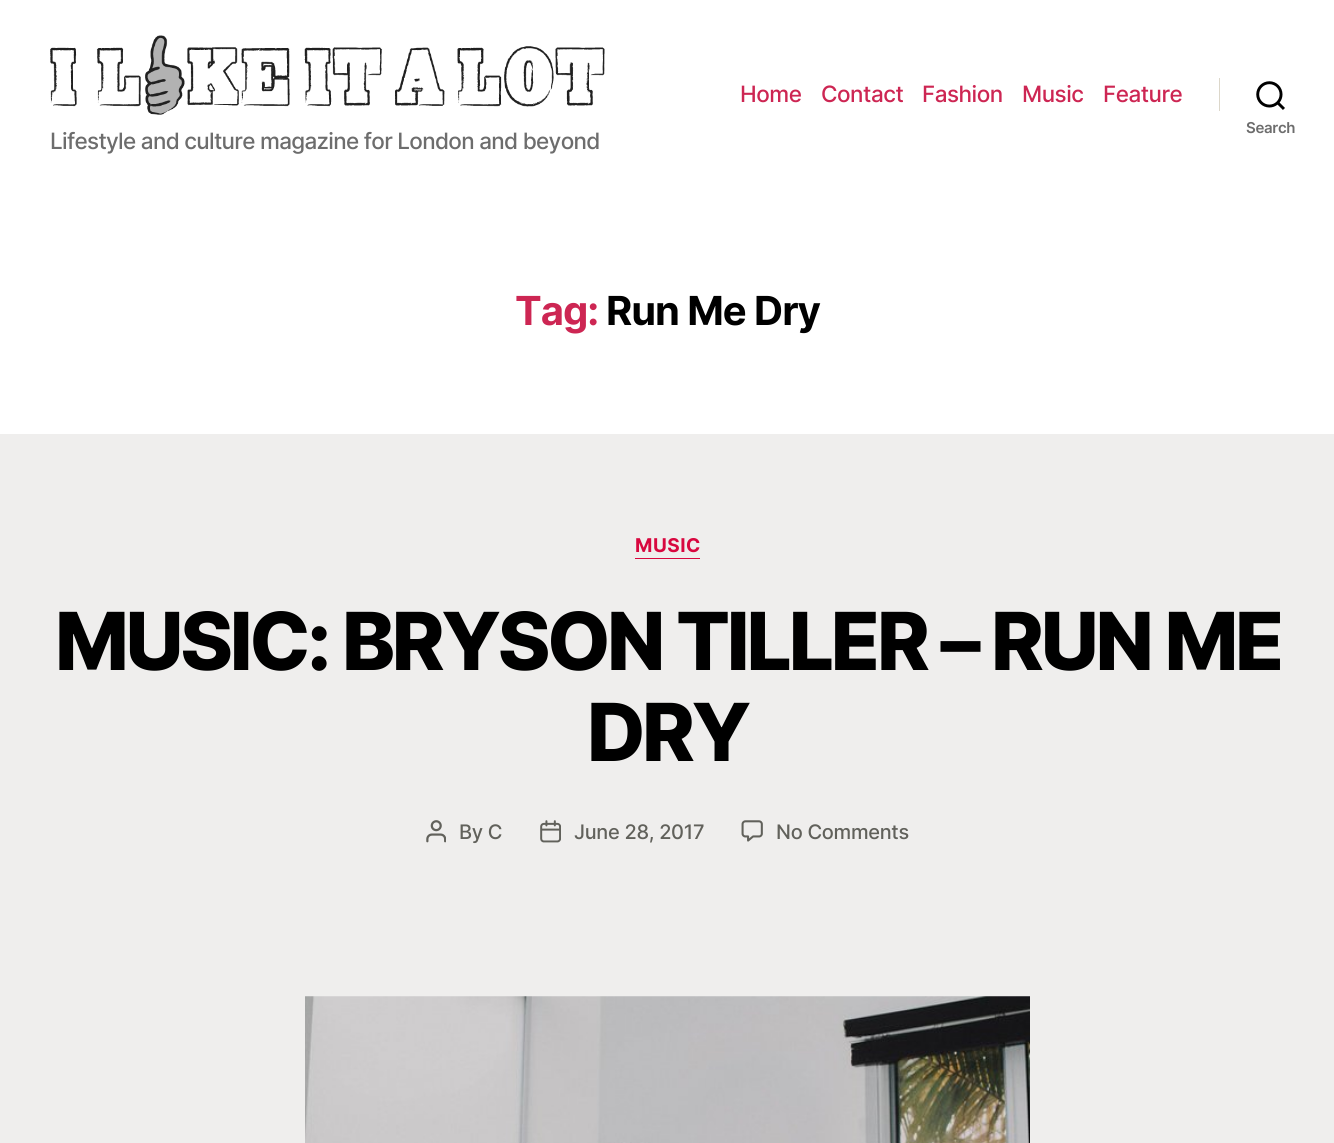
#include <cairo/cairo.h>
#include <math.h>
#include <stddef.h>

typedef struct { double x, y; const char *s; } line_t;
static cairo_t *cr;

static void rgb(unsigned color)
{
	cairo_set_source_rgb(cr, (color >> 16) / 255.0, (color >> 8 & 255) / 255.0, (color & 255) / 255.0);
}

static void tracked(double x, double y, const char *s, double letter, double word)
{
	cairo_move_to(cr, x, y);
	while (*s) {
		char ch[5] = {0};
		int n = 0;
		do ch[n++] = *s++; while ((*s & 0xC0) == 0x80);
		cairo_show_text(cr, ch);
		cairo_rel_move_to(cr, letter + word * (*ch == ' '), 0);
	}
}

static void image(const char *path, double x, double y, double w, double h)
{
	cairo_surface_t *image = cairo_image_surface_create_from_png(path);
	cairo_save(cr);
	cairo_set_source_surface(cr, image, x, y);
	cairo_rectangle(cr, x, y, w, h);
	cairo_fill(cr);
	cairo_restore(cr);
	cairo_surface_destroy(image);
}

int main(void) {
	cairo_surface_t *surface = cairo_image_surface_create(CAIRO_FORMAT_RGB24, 1334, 1143);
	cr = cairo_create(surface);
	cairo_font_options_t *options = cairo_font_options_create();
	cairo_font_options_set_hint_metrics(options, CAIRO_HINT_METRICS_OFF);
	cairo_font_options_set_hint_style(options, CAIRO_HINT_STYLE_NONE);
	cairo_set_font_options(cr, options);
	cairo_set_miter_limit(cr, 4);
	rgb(0xefeeed);
	cairo_paint(cr);
	rgb(0xffffff);
	cairo_rectangle(cr, 0, 0, 1334, 434);
	cairo_fill(cr);
	rgb(0xdcd7ca);
	cairo_rectangle(cr, 1219, 78, 1, 33);
	cairo_fill(cr);
	image("img/1.png", 1256, 81, 29, 29);
	image("img/2.png", 50, 35, 555, 80);
	rgb(0xd8073f);
	cairo_rectangle(cr, 635, 558, 65, 1);
	cairo_fill(cr);
	image("img/3.png", 426, 820, 20, 23);
	image("img/4.png", 540, 820, 21, 23);
	image("img/5.png", 741, 820, 22, 22);
	image("img/6.png", 305, 996, 725, 147);
	cairo_select_font_face(cr, "Inter Medium", CAIRO_FONT_SLANT_NORMAL, CAIRO_FONT_WEIGHT_NORMAL);
	cairo_set_font_size(cr, 22.5);
	rgb(0xcd2653);
	{
		static const line_t items[] = {
			{740, 102, "Home"},
			{821, 102, "Contact"},
			{922, 102, "Fashion"},
			{1022, 102, "Music"},
			{1103, 102, "Feature"},
		};
		for (size_t i = 0; i < sizeof items / sizeof *items; i++) {
			tracked(items[i].x, items[i].y, items[i].s, -0.5, 0);
		}
	}
	cairo_select_font_face(cr, "Inter SemiBold", CAIRO_FONT_SLANT_NORMAL, CAIRO_FONT_WEIGHT_NORMAL);
	cairo_set_font_size(cr, 15);
	rgb(0x6d6d6d);
	tracked(1246, 133, "Search", -0.3, 0);
	cairo_select_font_face(cr, "Inter Medium", CAIRO_FONT_SLANT_NORMAL, CAIRO_FONT_WEIGHT_NORMAL);
	cairo_set_font_size(cr, 22.5);
	tracked(50, 149, "Lifestyle and culture magazine for London and beyond", -0.7, 0);
	cairo_select_font_face(cr, "Inter", CAIRO_FONT_SLANT_NORMAL, CAIRO_FONT_WEIGHT_BOLD);
	cairo_set_font_size(cr, 40);
	rgb(0xcd2653);
	tracked(515, 325, "Tag:", -1, 0);
	rgb(0x000000);
	tracked(606, 325, "Run Me Dry", -1, 0);
	cairo_set_font_size(cr, 19);
	rgb(0xd8073f);
	tracked(635, 552, "MUSIC", 0.5, 0);
	cairo_select_font_face(cr, "Inter ExtraBold", CAIRO_FONT_SLANT_NORMAL, CAIRO_FONT_WEIGHT_NORMAL);
	cairo_set_font_size(cr, 80);
	rgb(0x000000);
	tracked(55, 670, "MUSIC: BRYSON TILLER – RUN ME", -3.3, 0);
	tracked(587, 761, "DRY", -3.3, 0);
	cairo_select_font_face(cr, "Inter Medium", CAIRO_FONT_SLANT_NORMAL, CAIRO_FONT_WEIGHT_NORMAL);
	cairo_set_font_size(cr, 20);
	rgb(0x61615b);
	{
		static const line_t items[] = {
			{459, 839, "By C"},
			{574, 839, "June 28, 2017"},
			{776, 839, "No Comments"},
		};
		for (size_t i = 0; i < sizeof items / sizeof *items; i++) {
			tracked(items[i].x, items[i].y, items[i].s, -0.3, 0);
		}
	}
	cairo_surface_write_to_png(surface, "page.png");
	cairo_font_options_destroy(options);
	cairo_destroy(cr);
	cairo_surface_destroy(surface);
	return 0;
}
